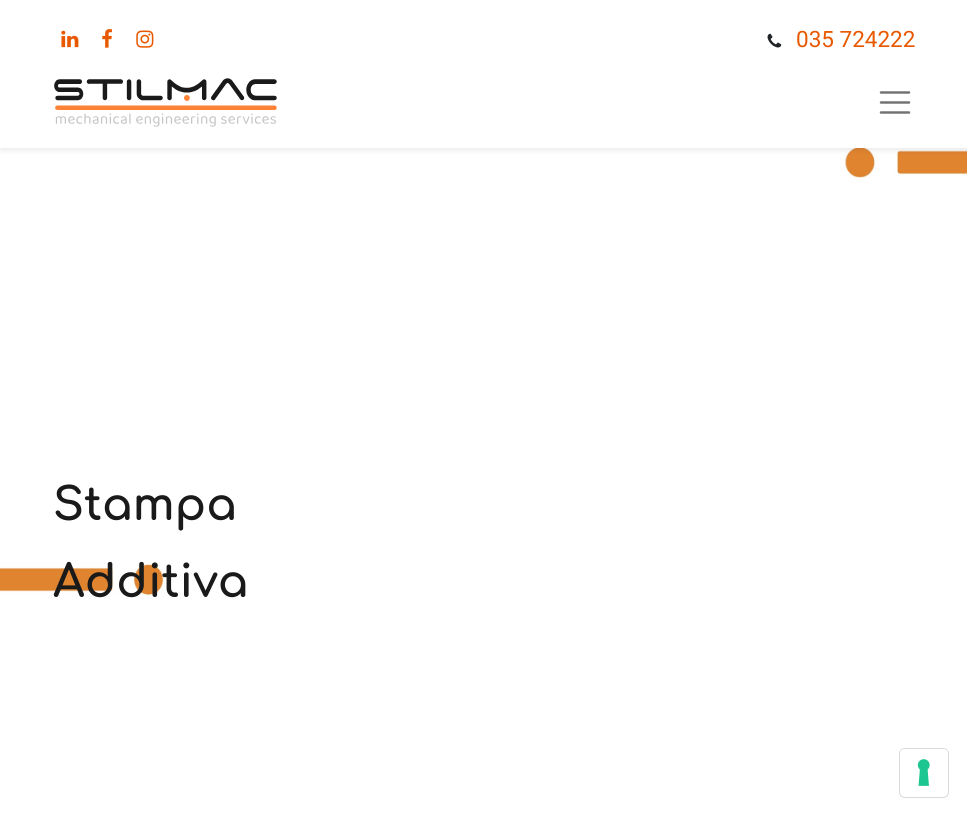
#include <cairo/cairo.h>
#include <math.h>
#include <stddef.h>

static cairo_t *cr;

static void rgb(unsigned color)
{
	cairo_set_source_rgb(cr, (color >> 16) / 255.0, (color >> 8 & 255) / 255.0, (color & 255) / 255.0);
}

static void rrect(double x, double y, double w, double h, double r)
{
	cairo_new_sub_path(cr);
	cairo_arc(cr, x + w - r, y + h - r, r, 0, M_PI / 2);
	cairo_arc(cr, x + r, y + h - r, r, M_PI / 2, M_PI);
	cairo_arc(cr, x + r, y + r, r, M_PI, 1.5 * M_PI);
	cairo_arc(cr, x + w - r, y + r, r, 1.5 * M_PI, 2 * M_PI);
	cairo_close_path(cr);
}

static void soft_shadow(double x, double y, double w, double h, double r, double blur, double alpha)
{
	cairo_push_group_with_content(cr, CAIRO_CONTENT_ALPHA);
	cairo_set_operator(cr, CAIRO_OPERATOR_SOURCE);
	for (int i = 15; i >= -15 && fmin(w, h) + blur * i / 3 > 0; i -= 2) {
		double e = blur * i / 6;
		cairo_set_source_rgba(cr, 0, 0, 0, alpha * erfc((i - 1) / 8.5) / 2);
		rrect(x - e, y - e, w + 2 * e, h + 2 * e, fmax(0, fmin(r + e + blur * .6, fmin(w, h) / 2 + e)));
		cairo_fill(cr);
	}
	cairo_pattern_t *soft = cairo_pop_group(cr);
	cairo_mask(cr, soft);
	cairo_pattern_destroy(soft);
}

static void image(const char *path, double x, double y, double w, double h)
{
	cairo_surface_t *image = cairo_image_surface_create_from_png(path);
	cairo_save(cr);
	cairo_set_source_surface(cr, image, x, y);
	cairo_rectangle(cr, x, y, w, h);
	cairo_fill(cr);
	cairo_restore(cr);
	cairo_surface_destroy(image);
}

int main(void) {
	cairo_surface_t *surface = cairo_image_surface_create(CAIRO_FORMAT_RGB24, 967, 816);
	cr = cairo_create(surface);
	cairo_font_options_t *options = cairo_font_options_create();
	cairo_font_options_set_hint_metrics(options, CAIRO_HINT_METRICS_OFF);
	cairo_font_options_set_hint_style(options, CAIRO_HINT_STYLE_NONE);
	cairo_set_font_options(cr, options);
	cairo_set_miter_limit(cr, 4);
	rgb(0xffffff);
	cairo_paint(cr);
	image("img/6.png", 0, 148, 967, 448);
	rgb(0x000000);
	soft_shadow(0, 4, 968, 147, 0, 2.5, 0.07);
	rgb(0xffffff);
	cairo_rectangle(cr, 0, 1, 967, 147);
	cairo_fill(cr);
	image("img/1.png", 61, 30, 18, 18);
	image("img/2.png", 102, 29, 10, 19);
	image("img/3.png", 136, 30, 18, 18);
	image("img/4.png", 767, 33, 15, 15);
	image("img/5.png", 54, 78, 223, 49);
	cairo_new_path(cr);
	cairo_move_to(cr, 881, 92.5);
	cairo_line_to(cr, 909, 92.5);
	cairo_move_to(cr, 881, 102.5);
	cairo_line_to(cr, 909, 102.5);
	cairo_move_to(cr, 881, 112.5);
	cairo_line_to(cr, 909, 112.5);
	rgb(0x737373);
	cairo_set_line_width(cr, 2.5);
	cairo_set_line_cap(cr, CAIRO_LINE_CAP_ROUND);
	cairo_stroke(cr);
	rrect(899.5, 748.5, 49, 49, 5.5);
	rgb(0xd9d9d9);
	cairo_set_line_width(cr, 1);
	cairo_set_line_cap(cr, CAIRO_LINE_CAP_BUTT);
	cairo_stroke(cr);
	rgb(0xffffff);
	rrect(900, 749, 48, 47, 5);
	cairo_fill(cr);
	image("img/7.png", 917, 759, 13, 27);
	cairo_select_font_face(cr, "Roboto", CAIRO_FONT_SLANT_NORMAL, CAIRO_FONT_WEIGHT_NORMAL);
	cairo_set_font_size(cr, 22.5);
	rgb(0xe85800);
	cairo_move_to(cr, 796, 47);
	cairo_show_text(cr, "035 724222");
	cairo_select_font_face(cr, "Comfortaa", CAIRO_FONT_SLANT_NORMAL, CAIRO_FONT_WEIGHT_BOLD);
	cairo_set_font_size(cr, 45);
	rgb(0x1a1a1a);
	cairo_move_to(cr, 53, 520);
	cairo_show_text(cr, "Stampa");
	cairo_move_to(cr, 53, 597);
	cairo_show_text(cr, "Additiva");
	cairo_surface_write_to_png(surface, "page.png");
	cairo_font_options_destroy(options);
	cairo_destroy(cr);
	cairo_surface_destroy(surface);
	return 0;
}
